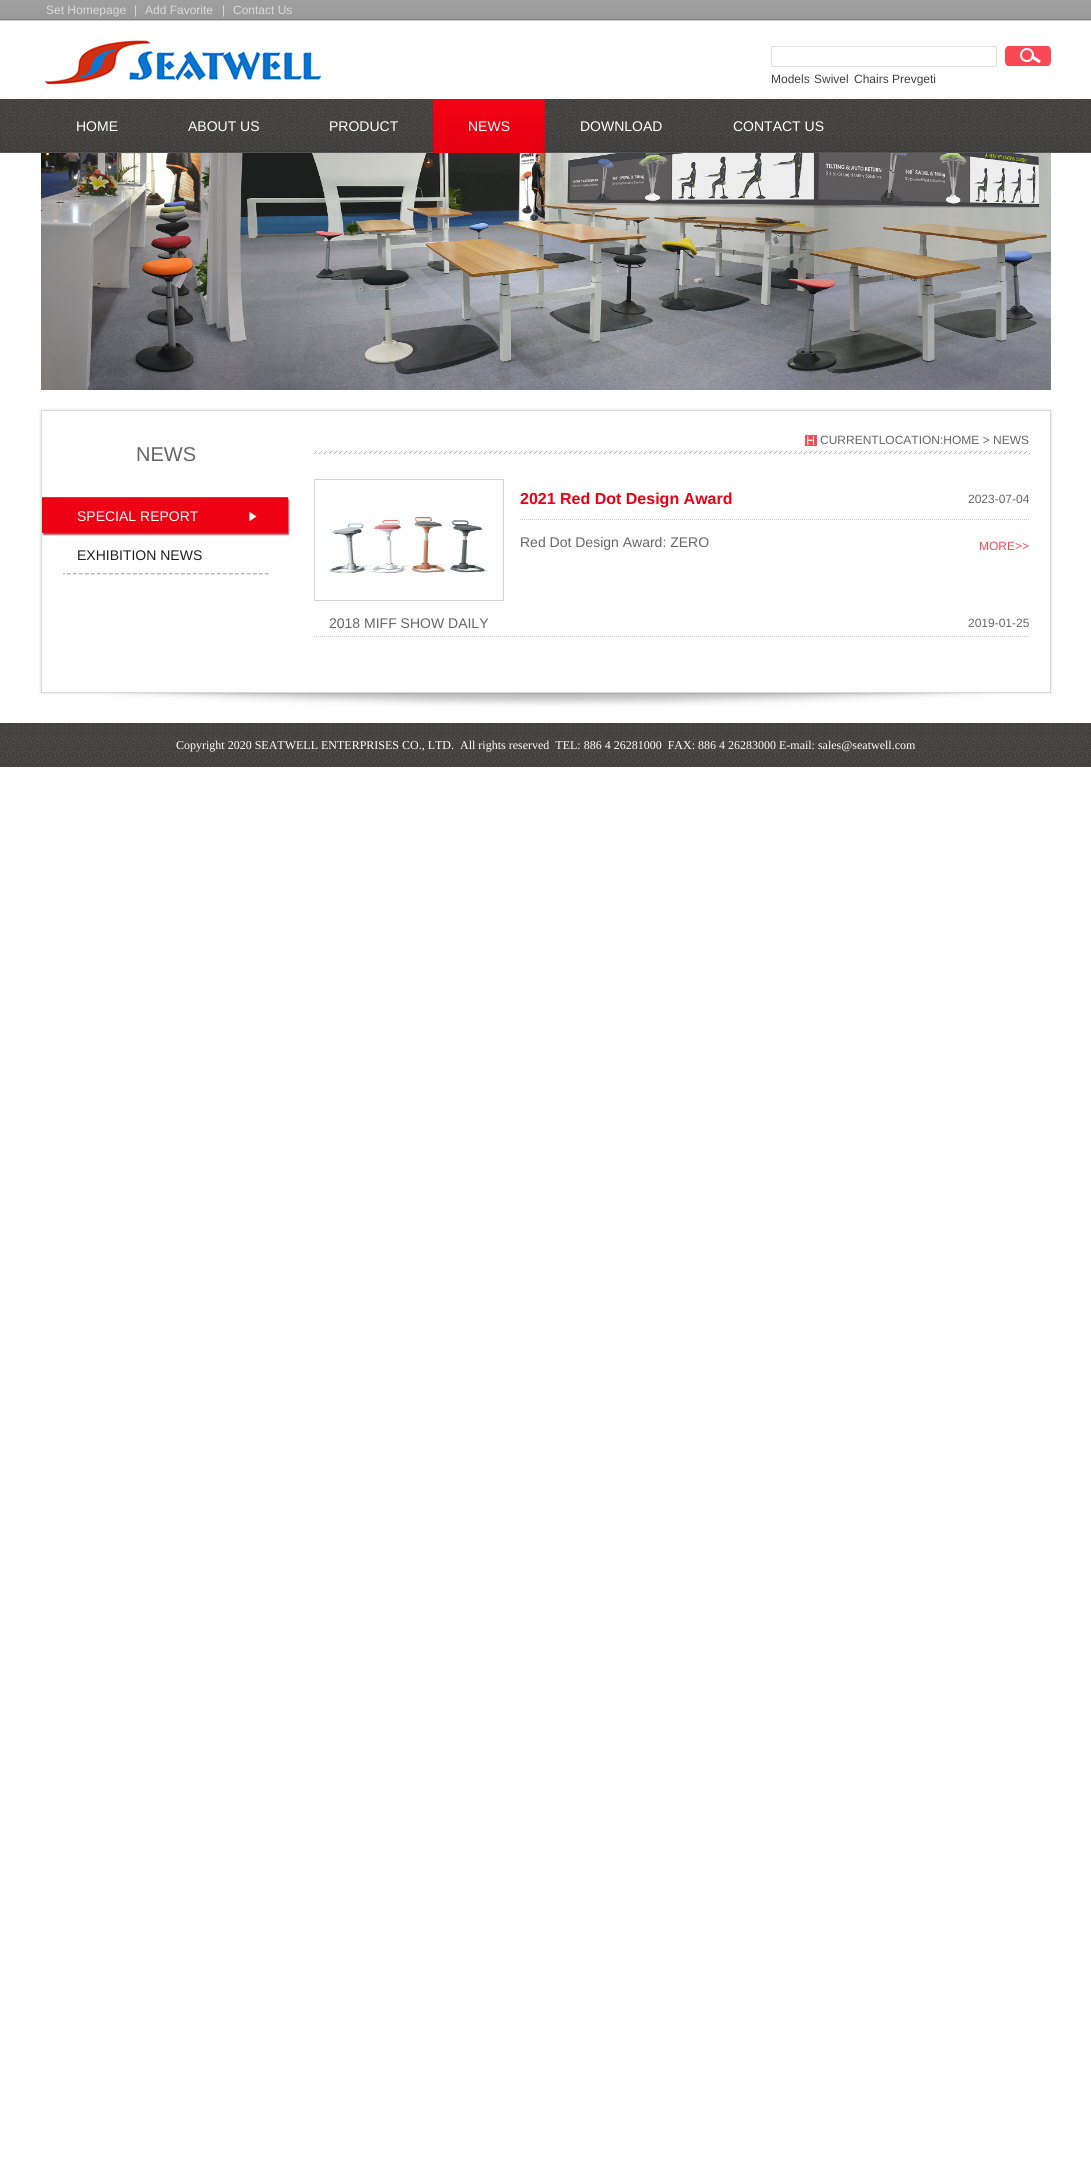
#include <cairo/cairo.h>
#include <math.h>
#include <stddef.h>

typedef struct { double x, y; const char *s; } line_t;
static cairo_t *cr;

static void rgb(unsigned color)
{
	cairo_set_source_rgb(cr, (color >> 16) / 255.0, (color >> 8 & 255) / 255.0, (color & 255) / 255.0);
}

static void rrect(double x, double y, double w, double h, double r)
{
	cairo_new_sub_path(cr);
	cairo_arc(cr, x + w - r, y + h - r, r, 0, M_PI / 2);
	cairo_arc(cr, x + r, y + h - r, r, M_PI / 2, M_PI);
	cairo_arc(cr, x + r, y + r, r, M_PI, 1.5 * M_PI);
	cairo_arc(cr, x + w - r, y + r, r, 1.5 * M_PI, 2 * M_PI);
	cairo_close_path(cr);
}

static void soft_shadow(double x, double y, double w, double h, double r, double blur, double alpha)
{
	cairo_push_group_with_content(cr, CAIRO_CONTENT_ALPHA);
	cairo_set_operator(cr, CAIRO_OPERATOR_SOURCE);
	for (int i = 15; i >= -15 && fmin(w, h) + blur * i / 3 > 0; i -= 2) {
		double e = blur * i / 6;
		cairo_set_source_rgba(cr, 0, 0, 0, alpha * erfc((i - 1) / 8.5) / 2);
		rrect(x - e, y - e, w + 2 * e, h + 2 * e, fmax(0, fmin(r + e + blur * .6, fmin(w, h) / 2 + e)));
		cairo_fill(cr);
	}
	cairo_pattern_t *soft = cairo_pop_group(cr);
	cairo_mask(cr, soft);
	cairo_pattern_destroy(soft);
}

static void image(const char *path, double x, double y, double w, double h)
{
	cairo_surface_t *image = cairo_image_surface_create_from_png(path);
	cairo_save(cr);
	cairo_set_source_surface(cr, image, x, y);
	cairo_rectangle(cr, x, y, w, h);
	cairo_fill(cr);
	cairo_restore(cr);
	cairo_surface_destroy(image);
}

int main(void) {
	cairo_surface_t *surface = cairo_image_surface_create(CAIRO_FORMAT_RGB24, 1091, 2182);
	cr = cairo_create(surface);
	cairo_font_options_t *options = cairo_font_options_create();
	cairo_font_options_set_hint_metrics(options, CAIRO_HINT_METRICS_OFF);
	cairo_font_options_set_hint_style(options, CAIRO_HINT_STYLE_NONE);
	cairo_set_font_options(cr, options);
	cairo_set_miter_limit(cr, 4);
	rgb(0xffffff);
	cairo_paint(cr);
	image("img/1.png", 0, 0, 1091, 21);
	image("img/2.png", 44, 40, 278, 45);
	image("img/3.png", 1005, 46, 46, 20);
	cairo_rectangle(cr, 771.5, 46.5, 225, 20);
	rgb(0xe2e2e2);
	cairo_set_line_width(cr, 1);
	cairo_stroke(cr);
	image("img/4.png", 0, 99, 1091, 54);
	image("img/5.png", 433, 99, 112, 54);
	image("img/6.png", 41, 153, 1010, 237);
	cairo_save(cr);
	cairo_set_fill_rule(cr, CAIRO_FILL_RULE_EVEN_ODD);
	cairo_new_path(cr);
	cairo_move_to(cr, 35, 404);
	cairo_line_to(cr, 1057, 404);
	cairo_line_to(cr, 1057, 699);
	cairo_line_to(cr, 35, 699);
	cairo_close_path(cr);
	cairo_move_to(cr, 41, 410);
	cairo_line_to(cr, 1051, 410);
	cairo_line_to(cr, 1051, 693);
	cairo_line_to(cr, 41, 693);
	cairo_close_path(cr);
	cairo_clip(cr);
	rgb(0xd9d9d9);
	soft_shadow(41, 410, 1010, 283, 0, 1.5, 1);
	cairo_restore(cr);
	cairo_rectangle(cr, 41.5, 410.5, 1009, 282);
	rgb(0xd9d9d9);
	cairo_stroke(cr);
	image("img/7.png", 42, 497, 248, 39);
	image("img/8.png", 249, 511, 8, 11);
	image("img/9.png", 63, 573, 206, 2);
	image("img/10.png", 314, 451, 716, 3);
	image("img/11.png", 805, 435, 12, 11);
	cairo_rectangle(cr, 314.5, 479.5, 189, 121);
	rgb(0xd4d4d4);
	cairo_stroke(cr);
	image("img/12.png", 329, 516, 159, 58);
	cairo_new_path(cr);
	cairo_move_to(cr, 520, 519.5);
	cairo_line_to(cr, 1030, 519.5);
	rgb(0xc7c7c7);
	cairo_set_dash(cr, (double[]){1, 1}, 2, 0);
	cairo_stroke(cr);
	cairo_new_path(cr);
	cairo_move_to(cr, 314, 636.5);
	cairo_line_to(cr, 1030, 636.5);
	rgb(0xcccccc);
	cairo_stroke(cr);
	image("img/13.png", 111, 693, 939, 14);
	image("img/14.png", 0, 723, 1091, 44);
	cairo_select_font_face(cr, "Liberation Sans", CAIRO_FONT_SLANT_NORMAL, CAIRO_FONT_WEIGHT_NORMAL);
	cairo_set_font_size(cr, 12);
	rgb(0xd9d9d9);
	{
		static const line_t items[] = {
			{46, 14, "Set Homepage"},
			{134, 14, "|"},
			{145, 14, "Add Favorite"},
			{222, 14, "|"},
			{233, 14, "Contact Us"},
		};
		for (size_t i = 0; i < sizeof items / sizeof *items; i++) {
			cairo_move_to(cr, items[i].x, items[i].y);
			cairo_show_text(cr, items[i].s);
		}
	}
	rgb(0x404040);
	{
		static const line_t items[] = {
			{771, 83, "Models"},
			{814, 83, "Swivel"},
			{854, 83, "Chairs Prevgeti"},
		};
		for (size_t i = 0; i < sizeof items / sizeof *items; i++) {
			cairo_move_to(cr, items[i].x, items[i].y);
			cairo_show_text(cr, items[i].s);
		}
	}
	cairo_set_font_size(cr, 14);
	rgb(0xffffff);
	{
		static const line_t items[] = {
			{76, 131, "HOME"},
			{188, 131, "ABOUT US"},
			{329, 131, "PRODUCT"},
			{468, 131, "NEWS"},
			{580, 131, "DOWNLOAD"},
			{733, 131, "CONTACT US"},
		};
		for (size_t i = 0; i < sizeof items / sizeof *items; i++) {
			cairo_move_to(cr, items[i].x, items[i].y);
			cairo_show_text(cr, items[i].s);
		}
	}
	cairo_set_font_size(cr, 20);
	rgb(0x666666);
	cairo_move_to(cr, 136, 461);
	cairo_show_text(cr, "NEWS");
	cairo_set_font_size(cr, 14);
	rgb(0xffffff);
	cairo_move_to(cr, 77, 521);
	cairo_show_text(cr, "SPECIAL REPORT");
	rgb(0x202020);
	cairo_move_to(cr, 77, 560);
	cairo_show_text(cr, "EXHIBITION NEWS");
	cairo_set_font_size(cr, 12);
	rgb(0x666666);
	cairo_move_to(cr, 820, 444);
	cairo_show_text(cr, "CURRENTLOCATION:HOME > NEWS");
	cairo_select_font_face(cr, "Liberation Sans", CAIRO_FONT_SLANT_NORMAL, CAIRO_FONT_WEIGHT_BOLD);
	cairo_set_font_size(cr, 16);
	rgb(0xea0012);
	cairo_move_to(cr, 520, 504);
	cairo_show_text(cr, "2021 Red Dot Design Award");
	cairo_select_font_face(cr, "Liberation Sans", CAIRO_FONT_SLANT_NORMAL, CAIRO_FONT_WEIGHT_NORMAL);
	cairo_set_font_size(cr, 12);
	rgb(0x666666);
	cairo_move_to(cr, 968, 503);
	cairo_show_text(cr, "2023-07-04");
	cairo_set_font_size(cr, 14);
	cairo_move_to(cr, 520, 547);
	cairo_show_text(cr, "Red Dot Design Award: ZERO");
	cairo_set_font_size(cr, 12);
	rgb(0xfa4856);
	cairo_move_to(cr, 979, 550);
	cairo_show_text(cr, "MORE>>");
	cairo_set_font_size(cr, 14);
	rgb(0x666666);
	cairo_move_to(cr, 329, 628);
	cairo_show_text(cr, "2018 MIFF SHOW DAILY");
	cairo_set_font_size(cr, 12);
	cairo_move_to(cr, 968, 627);
	cairo_show_text(cr, "2019-01-25");
	cairo_select_font_face(cr, "Liberation Serif", CAIRO_FONT_SLANT_NORMAL, CAIRO_FONT_WEIGHT_NORMAL);
	rgb(0xffffff);
	cairo_move_to(cr, 176, 749);
	cairo_show_text(cr, "Copyright 2020 SEATWELL ENTERPRISES CO., LTD.  All rights reserved  TEL: 886 4 26281000  FAX: 886 4 26283000 E-mail: sales@seatwell.com");
	cairo_surface_write_to_png(surface, "page.png");
	cairo_font_options_destroy(options);
	cairo_destroy(cr);
	cairo_surface_destroy(surface);
	return 0;
}
